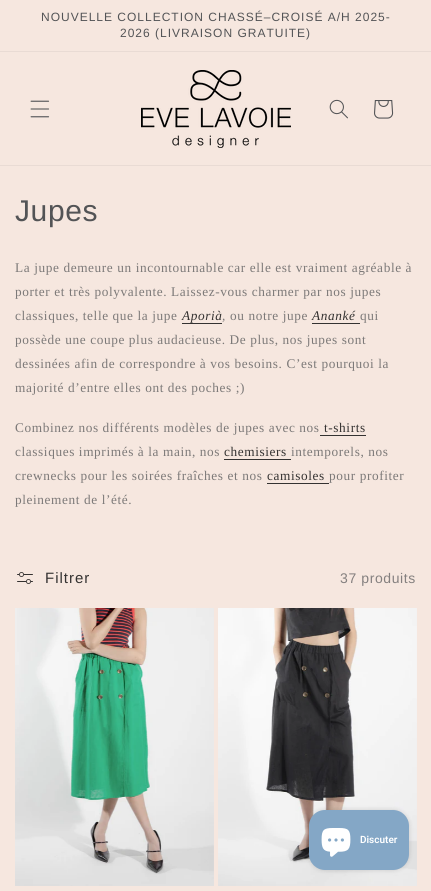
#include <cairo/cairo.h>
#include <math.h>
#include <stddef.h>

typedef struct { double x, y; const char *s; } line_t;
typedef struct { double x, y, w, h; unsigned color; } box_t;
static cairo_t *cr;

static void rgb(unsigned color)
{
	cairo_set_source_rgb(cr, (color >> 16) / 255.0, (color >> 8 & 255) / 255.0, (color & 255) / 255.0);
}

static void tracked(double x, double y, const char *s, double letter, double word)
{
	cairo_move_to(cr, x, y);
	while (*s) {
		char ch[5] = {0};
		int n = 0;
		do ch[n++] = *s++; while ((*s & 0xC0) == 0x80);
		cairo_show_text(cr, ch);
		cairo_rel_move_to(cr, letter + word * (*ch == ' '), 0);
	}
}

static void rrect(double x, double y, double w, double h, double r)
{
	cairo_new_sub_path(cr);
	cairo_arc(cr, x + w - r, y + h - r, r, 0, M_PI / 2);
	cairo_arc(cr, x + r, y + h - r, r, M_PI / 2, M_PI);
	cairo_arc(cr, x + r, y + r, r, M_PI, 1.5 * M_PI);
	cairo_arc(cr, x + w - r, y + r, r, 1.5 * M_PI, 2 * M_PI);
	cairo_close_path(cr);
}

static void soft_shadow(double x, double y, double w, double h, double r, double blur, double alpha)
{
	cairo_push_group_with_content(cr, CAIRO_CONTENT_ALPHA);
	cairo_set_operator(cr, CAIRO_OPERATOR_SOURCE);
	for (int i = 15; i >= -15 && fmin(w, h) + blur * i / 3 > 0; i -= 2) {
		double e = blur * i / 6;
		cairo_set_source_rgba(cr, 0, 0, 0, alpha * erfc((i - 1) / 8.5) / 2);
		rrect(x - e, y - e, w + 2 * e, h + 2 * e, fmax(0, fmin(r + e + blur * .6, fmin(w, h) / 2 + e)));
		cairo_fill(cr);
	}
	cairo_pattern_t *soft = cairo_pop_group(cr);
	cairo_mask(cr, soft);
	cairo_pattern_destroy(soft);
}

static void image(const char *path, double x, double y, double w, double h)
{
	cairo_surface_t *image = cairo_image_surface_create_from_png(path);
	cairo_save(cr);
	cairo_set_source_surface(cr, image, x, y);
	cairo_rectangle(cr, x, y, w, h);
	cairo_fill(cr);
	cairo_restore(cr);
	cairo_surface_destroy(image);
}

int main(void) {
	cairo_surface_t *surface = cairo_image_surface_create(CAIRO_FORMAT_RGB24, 431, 891);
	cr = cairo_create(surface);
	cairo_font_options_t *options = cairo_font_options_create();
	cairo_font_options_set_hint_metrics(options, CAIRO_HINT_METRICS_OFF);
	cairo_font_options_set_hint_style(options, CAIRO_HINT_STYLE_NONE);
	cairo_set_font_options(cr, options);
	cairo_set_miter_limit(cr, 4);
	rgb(0xf6e7df);
	cairo_paint(cr);
	rgb(0xe9dbd4);
	cairo_rectangle(cr, 0, 51, 431, 1);
	cairo_fill(cr);
	cairo_rectangle(cr, 0, 165, 431, 1);
	cairo_fill(cr);
	image("img/1.png", 30, 100, 20, 18);
	image("img/2.png", 141, 70, 150, 78);
	image("img/3.png", 329, 99, 19, 20);
	image("img/4.png", 374, 100, 20, 19);
	{
		static const box_t items[] = {
			{182, 323, 40, 1, 0x343231},
			{312, 323, 48, 1, 0x343231},
			{320, 435, 46, 1, 0x343231},
			{224, 459, 67, 1, 0x343231},
			{267, 483, 62, 1, 0x343231},
		};
		for (size_t i = 0; i < sizeof items / sizeof *items; i++) {
			rgb(items[i].color);
			cairo_rectangle(cr, items[i].x, items[i].y, items[i].w, items[i].h);
			cairo_fill(cr);
		}
	}
	image("img/5.png", 17, 572, 16, 12);
	image("img/6.png", 15, 608, 199, 278);
	image("img/7.png", 218, 608, 199, 278);
	rgb(0x000000);
	soft_shadow(309, 810, 100, 60, 16, 2.5, 0.15);
	rgb(0x84a7c6);
	rrect(309, 810, 100, 60, 16);
	cairo_fill(cr);
	image("img/8.png", 321, 828, 30, 29);
	cairo_select_font_face(cr, "Liberation Sans", CAIRO_FONT_SLANT_NORMAL, CAIRO_FONT_WEIGHT_NORMAL);
	cairo_set_font_size(cr, 12);
	rgb(0x535456);
	tracked(41, 21, "NOUVELLE COLLECTION CHASSÉ–CROISÉ A/H 2025-", 1, 0);
	tracked(120, 37, "2026 (LIVRAISON GRATUITE)", 1, 0);
	cairo_set_font_size(cr, 30);
	tracked(15, 221, "Jupes", 0.6, 0);
	cairo_select_font_face(cr, "Liberation Serif", CAIRO_FONT_SLANT_NORMAL, CAIRO_FONT_WEIGHT_NORMAL);
	cairo_set_font_size(cr, 13.3);
	rgb(0x7c7978);
	{
		static const line_t items[] = {
			{15, 272, "La jupe demeure un incontournable car elle est vraiment agréable à"},
			{15, 296, "porter et très polyvalente. Laissez-vous charmer par nos jupes"},
			{15, 320, "classiques, telle que la jupe"},
		};
		for (size_t i = 0; i < sizeof items / sizeof *items; i++) {
			tracked(items[i].x, items[i].y, items[i].s, 0.6, 0);
		}
	}
	cairo_select_font_face(cr, "Liberation Serif", CAIRO_FONT_SLANT_ITALIC, CAIRO_FONT_WEIGHT_NORMAL);
	rgb(0x343231);
	tracked(182, 320, "Aporià", 0.6, 0);
	rgb(0x7c7978);
	tracked(222, 320, ",", 0.6, 0);
	cairo_select_font_face(cr, "Liberation Serif", CAIRO_FONT_SLANT_NORMAL, CAIRO_FONT_WEIGHT_NORMAL);
	tracked(230, 320, "ou notre jupe", 0.6, 0);
	cairo_select_font_face(cr, "Liberation Serif", CAIRO_FONT_SLANT_ITALIC, CAIRO_FONT_WEIGHT_NORMAL);
	rgb(0x343231);
	tracked(312, 320, "Ananké", 0.6, 0);
	cairo_select_font_face(cr, "Liberation Serif", CAIRO_FONT_SLANT_NORMAL, CAIRO_FONT_WEIGHT_NORMAL);
	rgb(0x7c7978);
	{
		static const line_t items[] = {
			{360, 320, "qui"},
			{15, 344, "possède une coupe plus audacieuse. De plus, nos jupes sont"},
			{15, 368, "dessinées afin de correspondre à vos besoins. C’est pourquoi la"},
			{15, 392, "majorité d’entre elles ont des poches ;)"},
			{15, 432, "Combinez nos différents modèles de jupes avec nos"},
		};
		for (size_t i = 0; i < sizeof items / sizeof *items; i++) {
			tracked(items[i].x, items[i].y, items[i].s, 0.6, 0);
		}
	}
	rgb(0x343231);
	tracked(324, 432, "t-shirts", 0.6, 0);
	rgb(0x7c7978);
	tracked(15, 456, "classiques imprimés à la main, nos", 0.6, 0);
	rgb(0x343231);
	tracked(224, 456, "chemisiers", 0.6, 0);
	rgb(0x7c7978);
	tracked(291, 456, "intemporels, nos", 0.6, 0);
	tracked(15, 480, "crewnecks pour les soirées fraîches et nos", 0.6, 0);
	rgb(0x343231);
	tracked(267, 480, "camisoles", 0.6, 0);
	rgb(0x7c7978);
	tracked(329, 480, "pour profiter", 0.6, 0);
	tracked(15, 504, "pleinement de l’été.", 0.6, 0);
	cairo_select_font_face(cr, "Liberation Sans", CAIRO_FONT_SLANT_NORMAL, CAIRO_FONT_WEIGHT_NORMAL);
	cairo_set_font_size(cr, 15);
	rgb(0x343231);
	tracked(45, 583, "Filtrer", 1, 0);
	cairo_set_font_size(cr, 14);
	rgb(0x84807f);
	tracked(340, 583, "37 produits", 0.6, 0);
	cairo_select_font_face(cr, "Roboto SemiBold", CAIRO_FONT_SLANT_NORMAL, CAIRO_FONT_WEIGHT_NORMAL);
	cairo_set_font_size(cr, 10);
	rgb(0xffffff);
	cairo_move_to(cr, 360, 843);
	cairo_show_text(cr, "Discuter");
	cairo_surface_write_to_png(surface, "page.png");
	cairo_font_options_destroy(options);
	cairo_destroy(cr);
	cairo_surface_destroy(surface);
	return 0;
}
